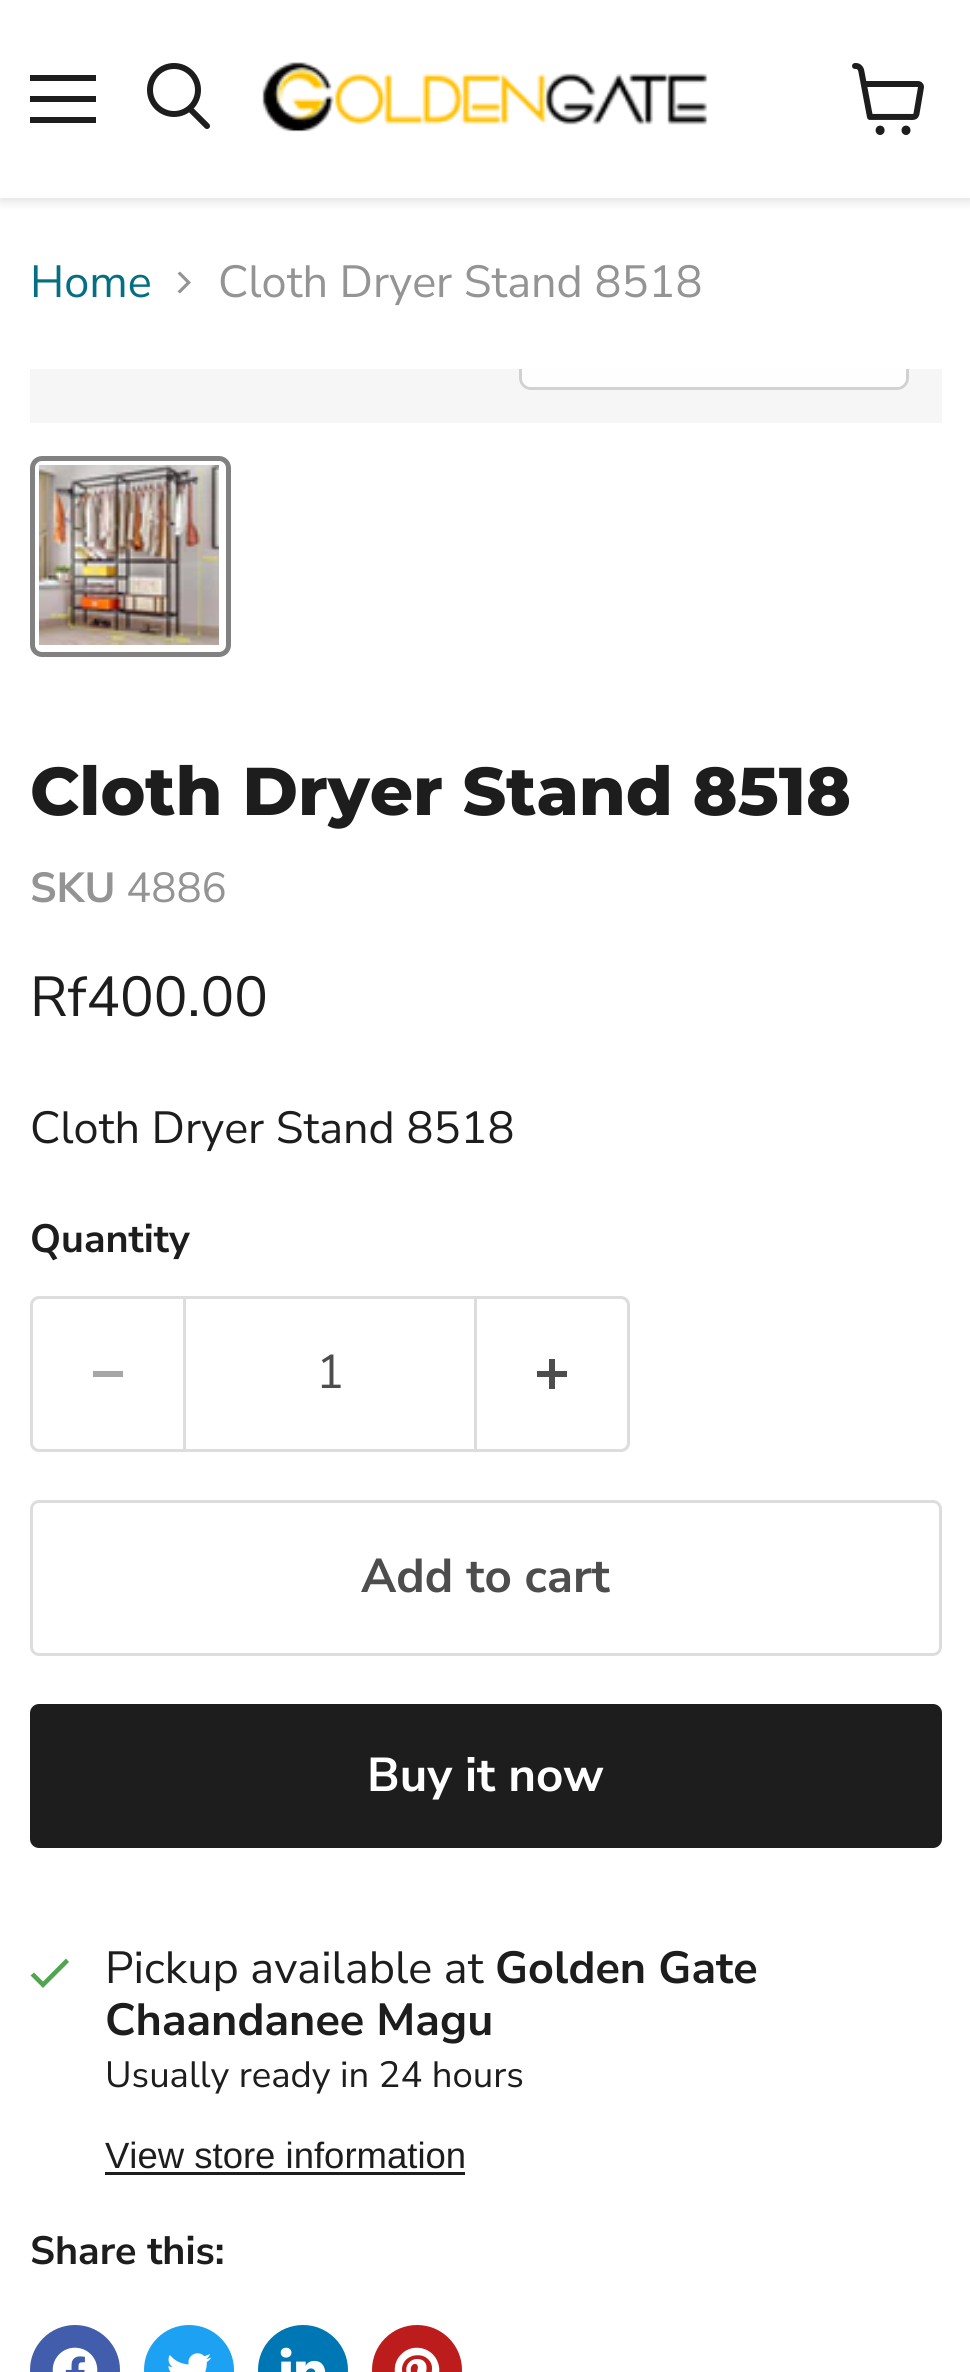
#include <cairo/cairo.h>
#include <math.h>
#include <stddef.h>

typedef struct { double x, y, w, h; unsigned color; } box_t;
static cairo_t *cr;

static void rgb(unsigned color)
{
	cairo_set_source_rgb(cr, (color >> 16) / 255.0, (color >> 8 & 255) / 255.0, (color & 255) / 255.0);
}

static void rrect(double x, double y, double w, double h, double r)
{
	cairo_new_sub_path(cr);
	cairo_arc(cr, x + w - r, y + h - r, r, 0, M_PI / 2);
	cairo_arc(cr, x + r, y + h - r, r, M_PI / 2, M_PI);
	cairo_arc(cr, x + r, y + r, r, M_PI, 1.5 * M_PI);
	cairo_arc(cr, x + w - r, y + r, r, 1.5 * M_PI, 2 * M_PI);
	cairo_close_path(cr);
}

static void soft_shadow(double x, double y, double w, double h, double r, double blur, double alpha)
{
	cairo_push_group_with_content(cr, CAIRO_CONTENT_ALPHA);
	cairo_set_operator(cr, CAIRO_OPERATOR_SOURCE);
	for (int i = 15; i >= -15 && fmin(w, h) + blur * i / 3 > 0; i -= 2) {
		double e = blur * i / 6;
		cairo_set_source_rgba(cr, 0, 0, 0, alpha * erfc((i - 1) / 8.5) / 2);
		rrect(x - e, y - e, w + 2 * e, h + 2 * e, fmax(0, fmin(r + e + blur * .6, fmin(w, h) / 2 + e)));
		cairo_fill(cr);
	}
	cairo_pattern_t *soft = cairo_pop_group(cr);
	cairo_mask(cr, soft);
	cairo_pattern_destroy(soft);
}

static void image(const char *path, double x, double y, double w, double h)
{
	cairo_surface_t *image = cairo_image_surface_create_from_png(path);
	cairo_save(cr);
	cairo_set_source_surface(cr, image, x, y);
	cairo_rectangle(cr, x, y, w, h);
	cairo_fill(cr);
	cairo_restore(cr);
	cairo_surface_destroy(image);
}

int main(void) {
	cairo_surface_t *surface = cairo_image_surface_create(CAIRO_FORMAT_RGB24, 970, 2372);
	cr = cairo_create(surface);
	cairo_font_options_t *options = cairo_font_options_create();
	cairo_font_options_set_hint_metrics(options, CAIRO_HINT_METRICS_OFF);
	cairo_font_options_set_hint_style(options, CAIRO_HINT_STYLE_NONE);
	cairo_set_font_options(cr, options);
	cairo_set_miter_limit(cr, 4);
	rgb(0xffffff);
	cairo_paint(cr);
	cairo_save(cr);
	cairo_rectangle(cr, 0, 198, 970, 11);
	cairo_clip(cr);
	rgb(0x808080);
	soft_shadow(0, 3, 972, 198, 0, 6, 0.25);
	cairo_restore(cr);
	{
		static const box_t items[] = {
			{30, 75, 66, 6, 0x1d1d1d},
			{30, 96, 66, 6, 0x1d1d1d},
			{30, 117, 66, 6, 0x1d1d1d},
		};
		for (size_t i = 0; i < sizeof items / sizeof *items; i++) {
			rgb(items[i].color);
			cairo_rectangle(cr, items[i].x, items[i].y, items[i].w, items[i].h);
			cairo_fill(cr);
		}
	}
	cairo_new_path(cr);
	cairo_move_to(cr, 207, 126);
	cairo_line_to(cr, 190.5, 109.5);
	cairo_set_line_width(cr, 6);
	cairo_set_line_cap(cr, CAIRO_LINE_CAP_ROUND);
	cairo_stroke(cr);
	cairo_arc(cr, 174, 90, 24, 0, 2 * M_PI);
	cairo_set_line_cap(cr, CAIRO_LINE_CAP_BUTT);
	cairo_stroke(cr);
	image("img/1.png", 262, 62, 446, 70);
	image("img/2.png", 852, 63, 72, 72);
	rgb(0x949494);
	cairo_set_fill_rule(cr, CAIRO_FILL_RULE_EVEN_ODD);
	cairo_new_path(cr);
	cairo_move_to(cr, 177.5, 291.5);
	cairo_line_to(cr, 180, 293.5);
	cairo_line_to(cr, 191, 282.5);
	cairo_line_to(cr, 180, 271.5);
	cairo_line_to(cr, 177.5, 273.5);
	cairo_line_to(cr, 186.5, 282.5);
	cairo_close_path(cr);
	cairo_fill(cr);
	rgb(0xf6f6f6);
	cairo_rectangle(cr, 30, 369, 912, 54);
	cairo_fill(cr);
	rrect(32.5, 458.5, 196, 196, 9.5);
	rgb(0x818181);
	cairo_set_line_width(cr, 5);
	cairo_stroke(cr);
	image("img/3.png", 39, 465, 180, 180);
	rgb(0xdddddd);
	cairo_new_path(cr);
	cairo_move_to(cr, 39, 1296);
	cairo_line_to(cr, 183, 1296);
	cairo_line_to(cr, 183, 1452);
	cairo_line_to(cr, 39, 1452);
	cairo_curve_to(cr, 34, 1452, 30, 1448, 30, 1443);
	cairo_line_to(cr, 30, 1305);
	cairo_curve_to(cr, 30, 1300, 34, 1296, 39, 1296);
	cairo_close_path(cr);
	cairo_move_to(cr, 39, 1299);
	cairo_line_to(cr, 183, 1299);
	cairo_line_to(cr, 183, 1449);
	cairo_line_to(cr, 39, 1449);
	cairo_curve_to(cr, 36, 1449, 33, 1446, 33, 1443);
	cairo_line_to(cr, 33, 1305);
	cairo_curve_to(cr, 33, 1302, 36, 1299, 39, 1299);
	cairo_close_path(cr);
	cairo_fill(cr);
	rgb(0xa6a6a6);
	cairo_rectangle(cr, 93, 1371, 30, 6);
	cairo_fill(cr);
	cairo_rectangle(cr, 184.5, 1297.5, 291, 153);
	rgb(0xdddddd);
	cairo_set_line_width(cr, 3);
	cairo_stroke(cr);
	cairo_new_path(cr);
	cairo_move_to(cr, 477, 1296);
	cairo_line_to(cr, 621, 1296);
	cairo_curve_to(cr, 626, 1296, 630, 1300, 630, 1305);
	cairo_line_to(cr, 630, 1443);
	cairo_curve_to(cr, 630, 1448, 626, 1452, 621, 1452);
	cairo_line_to(cr, 477, 1452);
	cairo_close_path(cr);
	cairo_move_to(cr, 477, 1299);
	cairo_line_to(cr, 621, 1299);
	cairo_curve_to(cr, 624, 1299, 627, 1302, 627, 1305);
	cairo_line_to(cr, 627, 1443);
	cairo_curve_to(cr, 627, 1446, 624, 1449, 621, 1449);
	cairo_line_to(cr, 477, 1449);
	cairo_close_path(cr);
	cairo_fill(cr);
	image("img/4.png", 537, 1359, 30, 30);
	rrect(31.5, 1501.5, 909, 153, 7.5);
	cairo_stroke(cr);
	rgb(0x1d1d1d);
	rrect(31.5, 1705.5, 909, 141, 7.5);
	cairo_fill_preserve(cr);
	cairo_stroke(cr);
	rgb(0x51a551);
	cairo_set_fill_rule(cr, CAIRO_FILL_RULE_WINDING);
	cairo_new_path(cr);
	cairo_move_to(cr, 43, 1984.5);
	cairo_line_to(cr, 41.5, 1986.5);
	cairo_line_to(cr, 43, 1988);
	cairo_line_to(cr, 44.5, 1986.5);
	cairo_close_path(cr);
	cairo_move_to(cr, 30.5, 1975.5);
	cairo_line_to(cr, 41.5, 1986.5);
	cairo_line_to(cr, 44.5, 1983);
	cairo_line_to(cr, 34, 1972.5);
	cairo_close_path(cr);
	cairo_move_to(cr, 44.5, 1986.5);
	cairo_line_to(cr, 69, 1962);
	cairo_line_to(cr, 66, 1958.5);
	cairo_line_to(cr, 41.5, 1983);
	cairo_close_path(cr);
	cairo_fill(cr);
	rgb(0x1d1d1d);
	cairo_rectangle(cr, 105, 2172, 360, 3);
	cairo_fill(cr);
	rgb(0x425dab);
	cairo_arc(cr, 75, 2370, 45, 0, 2 * M_PI);
	cairo_fill(cr);
	image("img/5.png", 52, 2347, 46, 25);
	rgb(0x1da1f2);
	cairo_arc(cr, 189, 2370, 45, 0, 2 * M_PI);
	cairo_fill(cr);
	image("img/6.png", 168, 2353, 44, 19);
	rgb(0x0077b5);
	cairo_arc(cr, 303, 2370, 45, 0, 2 * M_PI);
	cairo_fill(cr);
	image("img/7.png", 280, 2347, 46, 25);
	rgb(0xbd1c1c);
	cairo_arc(cr, 417, 2370, 45, 0, 2 * M_PI);
	cairo_fill(cr);
	image("img/8.png", 394, 2347, 46, 25);
	cairo_select_font_face(cr, "Nunito Sans", CAIRO_FONT_SLANT_NORMAL, CAIRO_FONT_WEIGHT_NORMAL);
	cairo_set_font_size(cr, 45);
	rgb(0x046e82);
	cairo_move_to(cr, 30, 297);
	cairo_show_text(cr, "Home");
	rgb(0x949494);
	cairo_move_to(cr, 218, 297);
	cairo_show_text(cr, "Cloth Dryer Stand 8518");
	cairo_save(cr);
	cairo_rectangle(cr, 30, 369, 912, 54);
	cairo_clip(cr);
	rrect(520.5, 301.5, 387, 87, 10.5);
	rgb(0xd1d1d1);
	cairo_stroke(cr);
	cairo_restore(cr);
	cairo_set_source_rgba(cr, 1, 1, 1, 0.9);
	cairo_new_path(cr);
	cairo_move_to(cr, 522, 369);
	cairo_line_to(cr, 906, 369);
	cairo_line_to(cr, 906, 378);
	cairo_curve_to(cr, 906, 383, 902, 387, 897, 387);
	cairo_line_to(cr, 531, 387);
	cairo_curve_to(cr, 526, 387, 522, 383, 522, 378);
	cairo_close_path(cr);
	cairo_fill(cr);
	cairo_select_font_face(cr, "Montserrat ExtraBold", CAIRO_FONT_SLANT_NORMAL, CAIRO_FONT_WEIGHT_NORMAL);
	cairo_set_font_size(cr, 67.5);
	rgb(0x1d1d1d);
	cairo_move_to(cr, 30, 815);
	cairo_show_text(cr, "Cloth Dryer Stand 8518");
	cairo_select_font_face(cr, "Nunito Sans", CAIRO_FONT_SLANT_NORMAL, CAIRO_FONT_WEIGHT_BOLD);
	cairo_set_font_size(cr, 42);
	rgb(0x949494);
	cairo_move_to(cr, 30, 902);
	cairo_show_text(cr, "SKU");
	cairo_select_font_face(cr, "Nunito Sans", CAIRO_FONT_SLANT_NORMAL, CAIRO_FONT_WEIGHT_NORMAL);
	cairo_move_to(cr, 126, 902);
	cairo_show_text(cr, "4886");
	cairo_set_font_size(cr, 56.25);
	rgb(0x1d1d1d);
	cairo_move_to(cr, 30, 1016);
	cairo_show_text(cr, "Rf400.00");
	cairo_set_font_size(cr, 45);
	cairo_move_to(cr, 30, 1143);
	cairo_show_text(cr, "Cloth Dryer Stand 8518");
	cairo_select_font_face(cr, "Nunito Sans", CAIRO_FONT_SLANT_NORMAL, CAIRO_FONT_WEIGHT_BOLD);
	cairo_set_font_size(cr, 39.5);
	cairo_move_to(cr, 30, 1252);
	cairo_show_text(cr, "Quantity");
	cairo_select_font_face(cr, "Nunito Sans", CAIRO_FONT_SLANT_NORMAL, CAIRO_FONT_WEIGHT_NORMAL);
	cairo_set_font_size(cr, 47.5);
	rgb(0x4d4d4d);
	cairo_move_to(cr, 316, 1388);
	cairo_show_text(cr, "1");
	cairo_select_font_face(cr, "Nunito Sans", CAIRO_FONT_SLANT_NORMAL, CAIRO_FONT_WEIGHT_BOLD);
	cairo_move_to(cr, 361, 1592);
	cairo_show_text(cr, "Add to cart");
	rgb(0xffffff);
	cairo_move_to(cr, 367, 1791);
	cairo_show_text(cr, "Buy it now");
	cairo_select_font_face(cr, "Nunito Sans", CAIRO_FONT_SLANT_NORMAL, CAIRO_FONT_WEIGHT_NORMAL);
	cairo_set_font_size(cr, 45);
	rgb(0x1d1d1d);
	cairo_move_to(cr, 105, 1983);
	cairo_show_text(cr, "Pickup available at");
	cairo_select_font_face(cr, "Nunito Sans", CAIRO_FONT_SLANT_NORMAL, CAIRO_FONT_WEIGHT_BOLD);
	cairo_move_to(cr, 495, 1983);
	cairo_show_text(cr, "Golden Gate");
	cairo_move_to(cr, 105, 2035);
	cairo_show_text(cr, "Chaandanee Magu");
	cairo_select_font_face(cr, "Nunito Sans", CAIRO_FONT_SLANT_NORMAL, CAIRO_FONT_WEIGHT_NORMAL);
	cairo_set_font_size(cr, 36.5);
	cairo_move_to(cr, 105, 2087);
	cairo_show_text(cr, "Usually ready in 24 hours");
	cairo_select_font_face(cr, "Liberation Sans", CAIRO_FONT_SLANT_NORMAL, CAIRO_FONT_WEIGHT_NORMAL);
	cairo_move_to(cr, 105, 2168);
	cairo_show_text(cr, "View store information");
	cairo_select_font_face(cr, "Nunito Sans", CAIRO_FONT_SLANT_NORMAL, CAIRO_FONT_WEIGHT_BOLD);
	cairo_set_font_size(cr, 39.5);
	cairo_move_to(cr, 30, 2264);
	cairo_show_text(cr, "Share this:");
	cairo_surface_write_to_png(surface, "page.png");
	cairo_font_options_destroy(options);
	cairo_destroy(cr);
	cairo_surface_destroy(surface);
	return 0;
}
